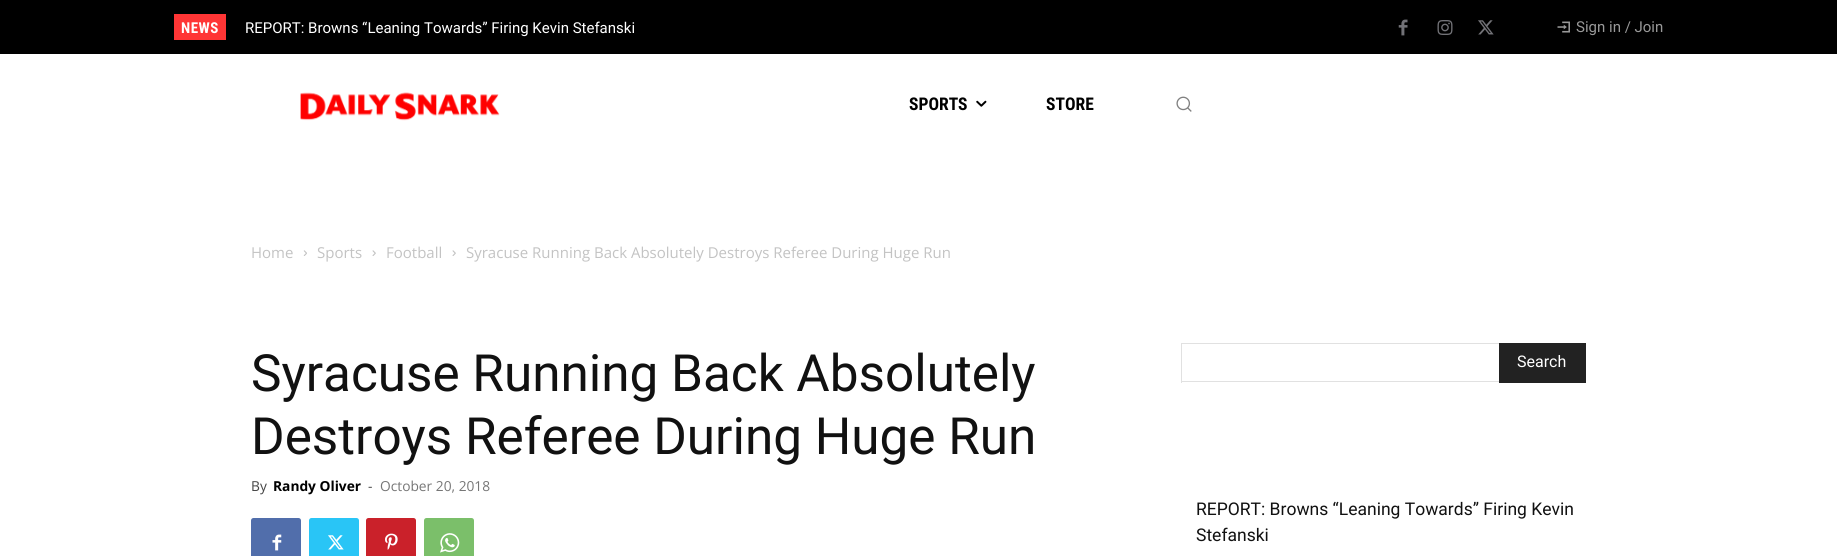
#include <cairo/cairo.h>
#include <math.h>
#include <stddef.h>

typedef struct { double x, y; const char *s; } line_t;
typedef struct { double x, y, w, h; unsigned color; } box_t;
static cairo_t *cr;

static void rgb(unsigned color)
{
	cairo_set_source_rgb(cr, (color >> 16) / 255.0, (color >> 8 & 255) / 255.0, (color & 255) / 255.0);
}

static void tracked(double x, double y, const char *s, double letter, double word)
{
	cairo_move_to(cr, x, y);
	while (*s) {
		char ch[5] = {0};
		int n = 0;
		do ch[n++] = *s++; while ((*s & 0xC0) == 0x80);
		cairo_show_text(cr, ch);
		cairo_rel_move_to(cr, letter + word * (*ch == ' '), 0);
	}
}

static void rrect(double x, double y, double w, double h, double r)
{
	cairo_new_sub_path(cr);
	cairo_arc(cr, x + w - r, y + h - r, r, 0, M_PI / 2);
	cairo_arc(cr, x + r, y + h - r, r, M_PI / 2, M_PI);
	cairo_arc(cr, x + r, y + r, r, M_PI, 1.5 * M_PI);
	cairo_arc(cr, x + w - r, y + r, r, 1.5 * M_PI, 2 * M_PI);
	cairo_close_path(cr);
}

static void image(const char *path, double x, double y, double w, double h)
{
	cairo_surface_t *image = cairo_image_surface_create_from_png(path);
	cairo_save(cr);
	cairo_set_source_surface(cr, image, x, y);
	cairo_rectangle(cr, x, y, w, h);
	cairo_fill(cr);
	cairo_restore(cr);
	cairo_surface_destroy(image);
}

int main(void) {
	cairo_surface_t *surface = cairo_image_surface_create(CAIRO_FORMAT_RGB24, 1837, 556);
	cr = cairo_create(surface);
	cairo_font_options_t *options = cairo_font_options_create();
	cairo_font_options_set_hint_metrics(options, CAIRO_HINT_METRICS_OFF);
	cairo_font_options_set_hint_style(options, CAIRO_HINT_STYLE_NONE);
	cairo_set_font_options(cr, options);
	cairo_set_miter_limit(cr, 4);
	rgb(0xffffff);
	cairo_paint(cr);
	rgb(0x000000);
	cairo_rectangle(cr, 0, 0, 1837, 54);
	cairo_fill(cr);
	rgb(0xff3535);
	cairo_rectangle(cr, 174, 14, 52, 26);
	cairo_fill(cr);
	image("img/1.png", 1398, 19, 10, 17);
	image("img/2.png", 1437, 20, 16, 15);
	image("img/3.png", 1478, 20, 16, 15);
	image("img/4.png", 1557, 21, 13, 12);
	image("img/5.png", 300, 92, 200, 29);
	image("img/6.png", 976, 100, 11, 7);
	image("img/7.png", 1176, 96, 16, 16);
	image("img/8.png", 303, 250, 4, 6);
	image("img/9.png", 372, 250, 4, 6);
	image("img/9.png", 452, 250, 4, 6);
	rgb(0x516eab);
	rrect(251, 518, 50, 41, 2.5);
	cairo_fill(cr);
	image("img/10.png", 272, 534, 10, 17);
	rgb(0x29c5f6);
	rrect(309, 518, 50, 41, 2.5);
	cairo_fill(cr);
	image("img/11.png", 328, 535, 16, 15);
	rgb(0xca212a);
	rrect(366, 518, 50, 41, 2.5);
	cairo_fill(cr);
	image("img/12.png", 385, 533, 13, 17);
	rgb(0x7bbf6a);
	rrect(424, 518, 50, 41, 2.5);
	cairo_fill(cr);
	image("img/13.png", 440, 533, 20, 20);
	{
		static const box_t items[] = {
			{1181, 343, 318, 1, 0xe1e1e1},
			{1181, 381, 318, 1, 0xe1e1e1},
			{1181, 343, 1, 40, 0xe1e1e1},
			{1499, 343, 87, 40, 0x222222},
		};
		for (size_t i = 0; i < sizeof items / sizeof *items; i++) {
			rgb(items[i].color);
			cairo_rectangle(cr, items[i].x, items[i].y, items[i].w, items[i].h);
			cairo_fill(cr);
		}
	}
	cairo_select_font_face(cr, "Roboto Condensed", CAIRO_FONT_SLANT_NORMAL, CAIRO_FONT_WEIGHT_BOLD);
	cairo_set_font_size(cr, 15);
	rgb(0xffffff);
	tracked(181, 33, "NEWS", 0.5, 0);
	cairo_select_font_face(cr, "Roboto", CAIRO_FONT_SLANT_NORMAL, CAIRO_FONT_WEIGHT_NORMAL);
	cairo_move_to(cr, 245, 33);
	cairo_show_text(cr, "REPORT: Browns “Leaning Towards” Firing Kevin Stefanski");
	rgb(0x999999);
	cairo_move_to(cr, 1576, 32);
	cairo_show_text(cr, "Sign in / Join");
	cairo_select_font_face(cr, "Roboto Condensed", CAIRO_FONT_SLANT_NORMAL, CAIRO_FONT_WEIGHT_BOLD);
	cairo_set_font_size(cr, 17.5);
	rgb(0x000000);
	cairo_move_to(cr, 909, 110);
	cairo_show_text(cr, "SPORTS");
	cairo_move_to(cr, 1046, 110);
	cairo_show_text(cr, "STORE");
	cairo_select_font_face(cr, "Open Sans", CAIRO_FONT_SLANT_NORMAL, CAIRO_FONT_WEIGHT_NORMAL);
	cairo_set_font_size(cr, 15);
	rgb(0xc3c3c3);
	{
		static const line_t items[] = {
			{251, 258, "Home"},
			{317, 258, "Sports"},
			{386, 258, "Football"},
			{466, 258, "Syracuse Running Back Absolutely Destroys Referee During Huge Run"},
		};
		for (size_t i = 0; i < sizeof items / sizeof *items; i++) {
			cairo_move_to(cr, items[i].x, items[i].y);
			cairo_show_text(cr, items[i].s);
		}
	}
	cairo_select_font_face(cr, "Roboto", CAIRO_FONT_SLANT_NORMAL, CAIRO_FONT_WEIGHT_NORMAL);
	cairo_set_font_size(cr, 51.25);
	rgb(0x111111);
	cairo_move_to(cr, 251, 391);
	cairo_show_text(cr, "Syracuse Running Back Absolutely");
	cairo_move_to(cr, 251, 454);
	cairo_show_text(cr, "Destroys Referee During Huge Run");
	cairo_select_font_face(cr, "Open Sans", CAIRO_FONT_SLANT_NORMAL, CAIRO_FONT_WEIGHT_NORMAL);
	cairo_set_font_size(cr, 13.75);
	rgb(0x444444);
	cairo_move_to(cr, 251, 491);
	cairo_show_text(cr, "By");
	cairo_select_font_face(cr, "Open Sans", CAIRO_FONT_SLANT_NORMAL, CAIRO_FONT_WEIGHT_BOLD);
	rgb(0x000000);
	cairo_move_to(cr, 273, 491);
	cairo_show_text(cr, "Randy Oliver");
	cairo_select_font_face(cr, "Open Sans", CAIRO_FONT_SLANT_NORMAL, CAIRO_FONT_WEIGHT_NORMAL);
	rgb(0x444444);
	cairo_move_to(cr, 368, 491);
	cairo_show_text(cr, "-");
	rgb(0x767676);
	cairo_move_to(cr, 380, 491);
	cairo_show_text(cr, "October 20, 2018");
	cairo_select_font_face(cr, "Roboto", CAIRO_FONT_SLANT_NORMAL, CAIRO_FONT_WEIGHT_NORMAL);
	cairo_set_font_size(cr, 16);
	rgb(0xffffff);
	cairo_move_to(cr, 1517, 367);
	cairo_show_text(cr, "Search");
	cairo_set_font_size(cr, 17.5);
	rgb(0x111111);
	cairo_move_to(cr, 1196, 515);
	cairo_show_text(cr, "REPORT: Browns “Leaning Towards” Firing Kevin");
	cairo_move_to(cr, 1196, 541);
	cairo_show_text(cr, "Stefanski");
	cairo_surface_write_to_png(surface, "page.png");
	cairo_font_options_destroy(options);
	cairo_destroy(cr);
	cairo_surface_destroy(surface);
	return 0;
}
